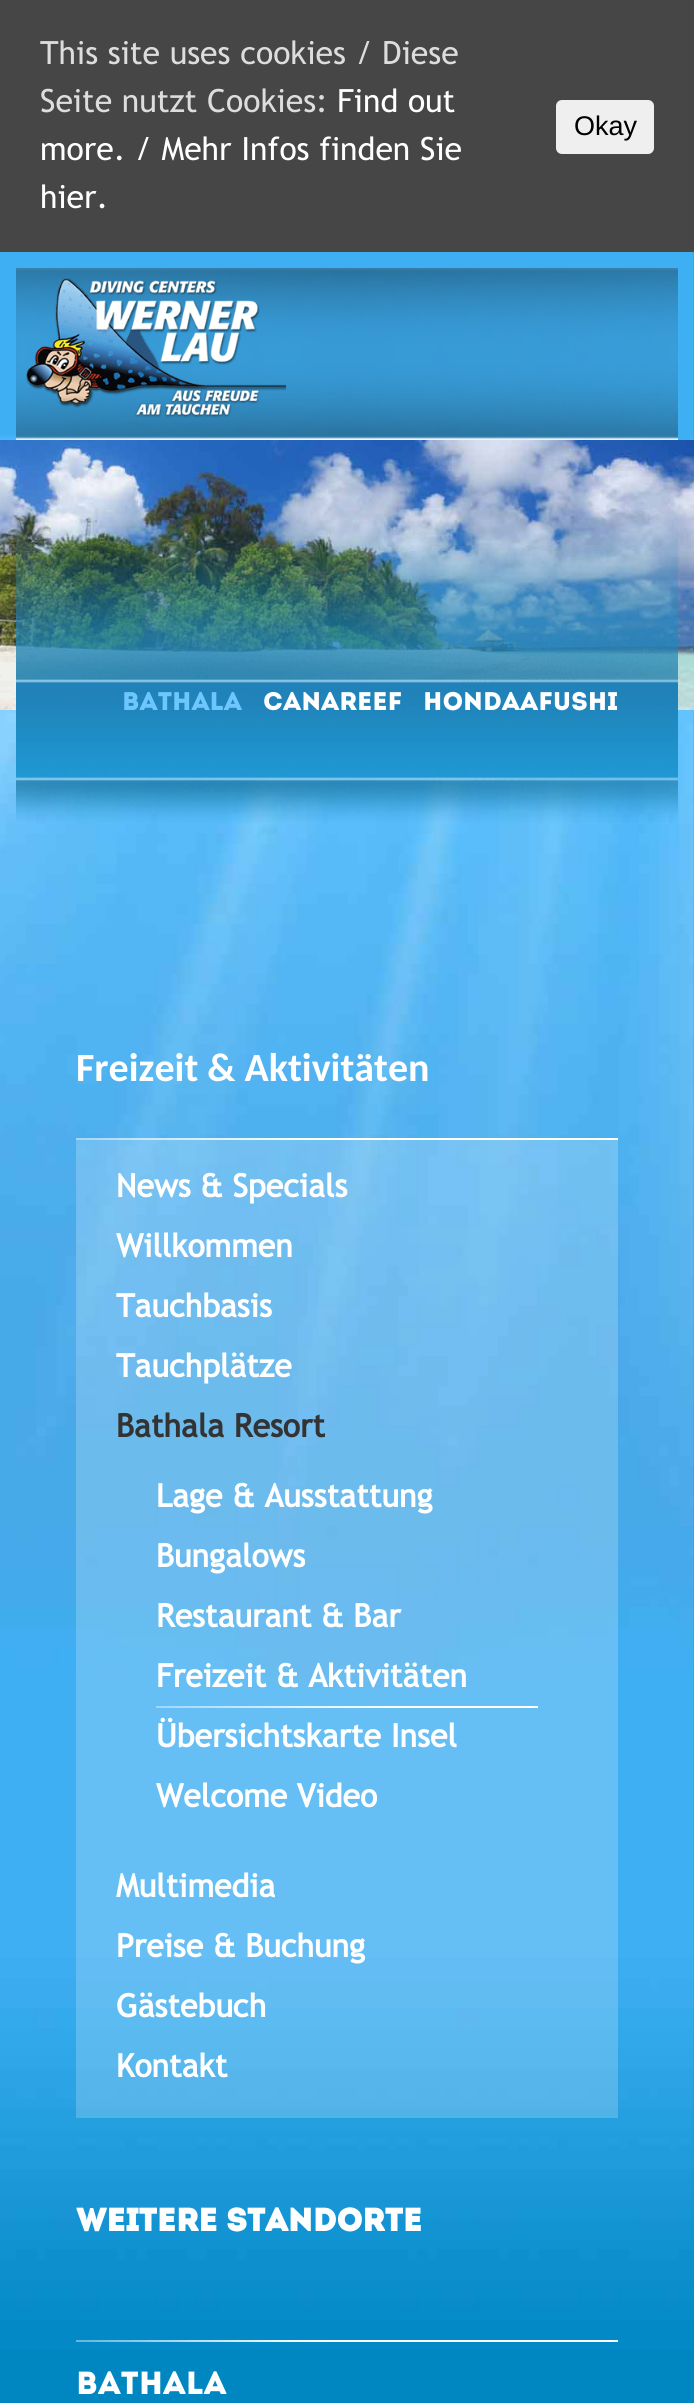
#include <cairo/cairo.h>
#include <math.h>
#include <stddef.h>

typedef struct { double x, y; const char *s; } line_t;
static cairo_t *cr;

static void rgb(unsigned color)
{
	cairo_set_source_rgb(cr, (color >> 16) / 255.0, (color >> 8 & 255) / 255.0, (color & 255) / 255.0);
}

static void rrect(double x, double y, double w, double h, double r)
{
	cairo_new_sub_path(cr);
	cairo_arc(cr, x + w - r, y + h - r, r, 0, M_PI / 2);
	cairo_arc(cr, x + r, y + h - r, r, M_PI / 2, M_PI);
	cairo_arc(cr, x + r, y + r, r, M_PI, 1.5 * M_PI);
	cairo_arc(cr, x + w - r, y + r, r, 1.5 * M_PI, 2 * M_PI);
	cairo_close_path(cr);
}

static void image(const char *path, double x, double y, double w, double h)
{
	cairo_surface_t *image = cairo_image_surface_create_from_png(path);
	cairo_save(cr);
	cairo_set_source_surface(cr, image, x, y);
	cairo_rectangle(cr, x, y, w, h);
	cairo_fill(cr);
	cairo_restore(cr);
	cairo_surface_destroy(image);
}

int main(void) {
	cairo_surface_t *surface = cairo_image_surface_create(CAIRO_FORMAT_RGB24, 694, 2403);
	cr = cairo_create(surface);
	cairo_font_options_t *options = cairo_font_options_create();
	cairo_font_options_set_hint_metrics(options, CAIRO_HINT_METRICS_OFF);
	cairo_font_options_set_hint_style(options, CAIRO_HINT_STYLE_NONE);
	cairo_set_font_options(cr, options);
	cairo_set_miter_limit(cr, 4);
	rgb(0x0087c1);
	cairo_paint(cr);
	image("img/1.png", 0, 252, 694, 2098);
	rgb(0x464646);
	cairo_rectangle(cr, 0, 0, 694, 252);
	cairo_fill(cr);
	rgb(0xefefef);
	rrect(556, 100, 98, 54, 6);
	cairo_fill(cr);
	image("img/2.png", 16, 268, 662, 172);
	image("img/3.png", 26, 278, 260, 140);
	image("img/4.png", 0, 440, 694, 270);
	image("img/5.png", 16, 521, 662, 301);
	cairo_set_source_rgba(cr, 1, 1, 1, 0.2);
	cairo_rectangle(cr, 76, 1138, 542, 980);
	cairo_fill(cr);
	image("img/6.png", 76, 1138, 542, 2);
	image("img/7.png", 156, 1706, 382, 2);
	image("img/8.png", 76, 2340, 542, 2);
	cairo_select_font_face(cr, "Trebuchet MS", CAIRO_FONT_SLANT_NORMAL, CAIRO_FONT_WEIGHT_NORMAL);
	cairo_set_font_size(cr, 32);
	rgb(0xdddddd);
	cairo_move_to(cr, 40, 64);
	cairo_show_text(cr, "This site uses cookies / Diese");
	cairo_move_to(cr, 40, 112);
	cairo_show_text(cr, "Seite nutzt Cookies:");
	rgb(0xffffff);
	{
		static const line_t items[] = {
			{337, 112, "Find out"},
			{40, 160, "more. / Mehr Infos finden Sie"},
			{40, 208, "hier."},
		};
		for (size_t i = 0; i < sizeof items / sizeof *items; i++) {
			cairo_move_to(cr, items[i].x, items[i].y);
			cairo_show_text(cr, items[i].s);
		}
	}
	cairo_select_font_face(cr, "Liberation Sans", CAIRO_FONT_SLANT_NORMAL, CAIRO_FONT_WEIGHT_NORMAL);
	cairo_set_font_size(cr, 27);
	rgb(0x000000);
	cairo_move_to(cr, 574, 135);
	cairo_show_text(cr, "Okay");
	cairo_select_font_face(cr, "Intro", CAIRO_FONT_SLANT_NORMAL, CAIRO_FONT_WEIGHT_NORMAL);
	cairo_set_font_size(cr, 25.5);
	rgb(0x6dc7fd);
	cairo_move_to(cr, 122, 710);
	cairo_show_text(cr, "Bathala");
	rgb(0xffffff);
	cairo_move_to(cr, 263, 710);
	cairo_show_text(cr, "Canareef");
	cairo_move_to(cr, 423, 710);
	cairo_show_text(cr, "Hondaafushi");
	cairo_select_font_face(cr, "Carlito", CAIRO_FONT_SLANT_NORMAL, CAIRO_FONT_WEIGHT_BOLD);
	cairo_set_font_size(cr, 40);
	cairo_move_to(cr, 76, 1081);
	cairo_show_text(cr, "Freizeit & Aktivitäten");
	cairo_select_font_face(cr, "Trebuchet MS", CAIRO_FONT_SLANT_NORMAL, CAIRO_FONT_WEIGHT_BOLD);
	cairo_set_font_size(cr, 32);
	{
		static const line_t items[] = {
			{116, 1197, "News & Specials"},
			{116, 1257, "Willkommen"},
			{116, 1317, "Tauchbasis"},
			{116, 1377, "Tauchplätze"},
		};
		for (size_t i = 0; i < sizeof items / sizeof *items; i++) {
			cairo_move_to(cr, items[i].x, items[i].y);
			cairo_show_text(cr, items[i].s);
		}
	}
	rgb(0x333333);
	cairo_move_to(cr, 116, 1437);
	cairo_show_text(cr, "Bathala Resort");
	rgb(0xffffff);
	{
		static const line_t items[] = {
			{156, 1507, "Lage & Ausstattung"},
			{156, 1567, "Bungalows"},
			{156, 1627, "Restaurant & Bar"},
			{156, 1687, "Freizeit & Aktivitäten"},
			{156, 1747, "Übersichtskarte Insel"},
			{156, 1807, "Welcome Video"},
			{116, 1897, "Multimedia"},
			{116, 1957, "Preise & Buchung"},
			{116, 2017, "Gästebuch"},
			{116, 2077, "Kontakt"},
		};
		for (size_t i = 0; i < sizeof items / sizeof *items; i++) {
			cairo_move_to(cr, items[i].x, items[i].y);
			cairo_show_text(cr, items[i].s);
		}
	}
	cairo_select_font_face(cr, "Intro", CAIRO_FONT_SLANT_NORMAL, CAIRO_FONT_WEIGHT_BOLD);
	cairo_move_to(cr, 76, 2231);
	cairo_show_text(cr, "WEITERE STANDORTE");
	cairo_select_font_face(cr, "Intro", CAIRO_FONT_SLANT_NORMAL, CAIRO_FONT_WEIGHT_NORMAL);
	cairo_move_to(cr, 76, 2394);
	cairo_show_text(cr, "BATHALA");
	cairo_surface_write_to_png(surface, "page.png");
	cairo_font_options_destroy(options);
	cairo_destroy(cr);
	cairo_surface_destroy(surface);
	return 0;
}
